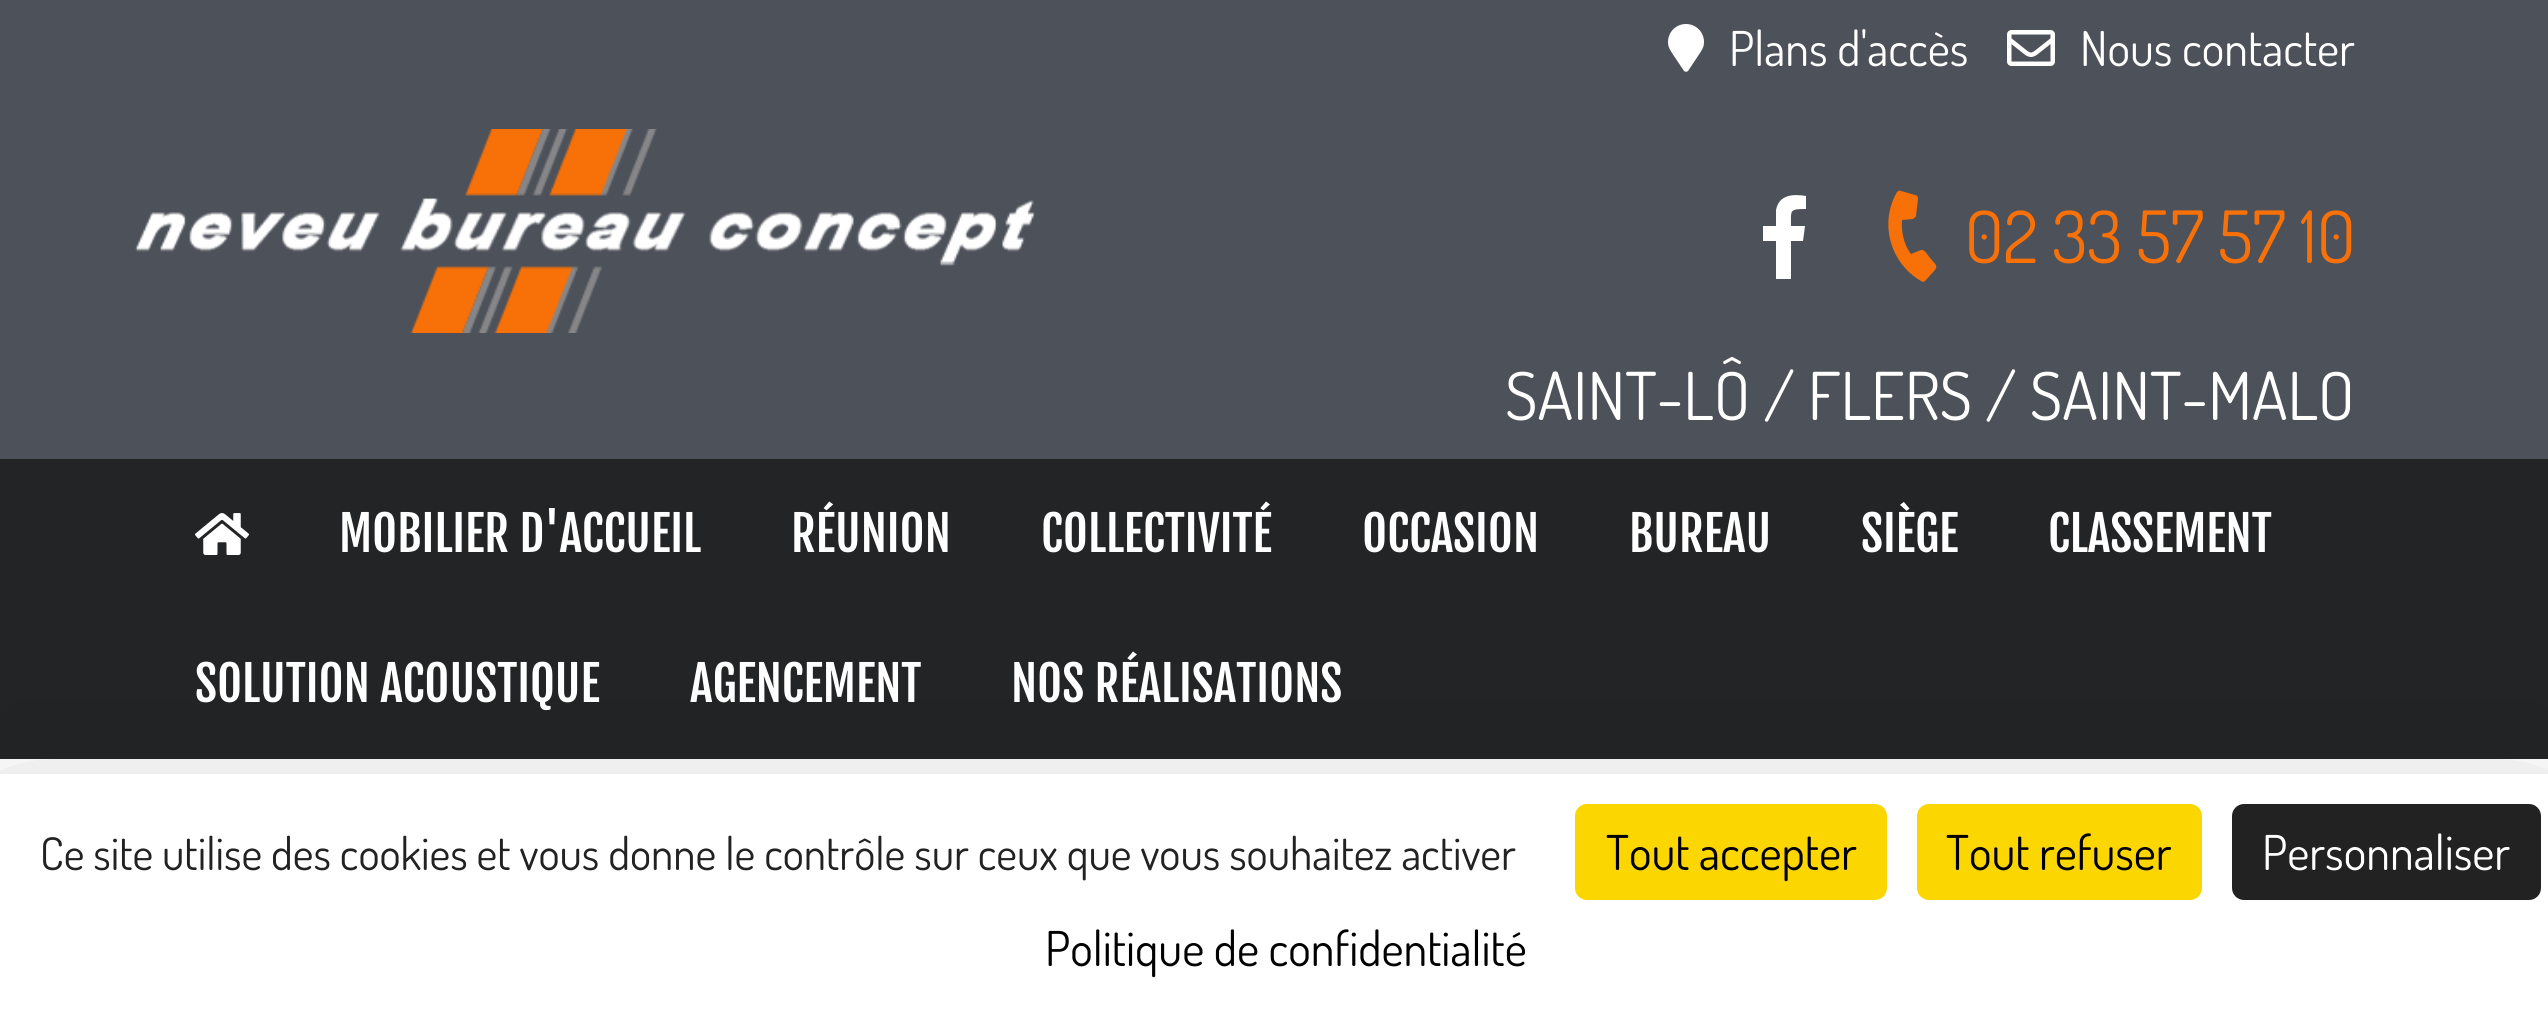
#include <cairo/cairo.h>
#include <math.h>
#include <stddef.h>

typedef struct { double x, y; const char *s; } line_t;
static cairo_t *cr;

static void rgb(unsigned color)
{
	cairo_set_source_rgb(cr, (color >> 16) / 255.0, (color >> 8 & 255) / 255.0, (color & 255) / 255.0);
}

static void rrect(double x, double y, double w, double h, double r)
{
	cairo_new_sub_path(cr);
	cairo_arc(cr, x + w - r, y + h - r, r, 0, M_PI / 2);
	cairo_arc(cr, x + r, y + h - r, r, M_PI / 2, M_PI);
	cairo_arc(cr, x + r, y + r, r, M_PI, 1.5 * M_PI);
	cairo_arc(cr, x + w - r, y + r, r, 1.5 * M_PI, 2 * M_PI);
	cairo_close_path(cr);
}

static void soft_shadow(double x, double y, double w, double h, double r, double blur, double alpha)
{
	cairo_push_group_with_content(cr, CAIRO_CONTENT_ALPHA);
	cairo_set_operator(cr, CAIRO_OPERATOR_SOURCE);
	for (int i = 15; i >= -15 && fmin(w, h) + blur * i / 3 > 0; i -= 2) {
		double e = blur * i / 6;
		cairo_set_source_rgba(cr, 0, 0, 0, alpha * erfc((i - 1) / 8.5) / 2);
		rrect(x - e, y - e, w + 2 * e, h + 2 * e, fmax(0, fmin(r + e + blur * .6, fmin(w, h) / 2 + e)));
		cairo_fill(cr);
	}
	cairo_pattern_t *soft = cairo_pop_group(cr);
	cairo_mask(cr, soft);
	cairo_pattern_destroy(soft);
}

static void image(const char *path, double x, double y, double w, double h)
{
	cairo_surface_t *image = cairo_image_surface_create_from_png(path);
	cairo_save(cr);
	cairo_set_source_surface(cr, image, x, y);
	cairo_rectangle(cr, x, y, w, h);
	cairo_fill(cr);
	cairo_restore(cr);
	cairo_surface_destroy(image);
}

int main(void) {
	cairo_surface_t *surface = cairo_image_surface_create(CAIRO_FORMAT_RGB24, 2548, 1024);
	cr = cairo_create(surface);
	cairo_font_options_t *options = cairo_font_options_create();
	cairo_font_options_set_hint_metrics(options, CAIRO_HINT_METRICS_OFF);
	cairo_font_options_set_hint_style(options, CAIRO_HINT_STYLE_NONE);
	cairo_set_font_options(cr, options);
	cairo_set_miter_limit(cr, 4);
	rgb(0xffffff);
	cairo_paint(cr);
	rgb(0x4d515a);
	cairo_rectangle(cr, 0, 0, 2548, 459);
	cairo_fill(cr);
	rgb(0xffffff);
	cairo_new_path(cr);
	cairo_move_to(cr, 1684, 71);
	cairo_curve_to(cr, 1671, 51, 1668, 49, 1668, 42);
	cairo_curve_to(cr, 1668, 32, 1676, 24, 1686, 24);
	cairo_curve_to(cr, 1696, 24, 1704, 32, 1704, 42);
	cairo_curve_to(cr, 1704, 49, 1701, 51, 1688, 71);
	cairo_curve_to(cr, 1687, 72, 1685, 72, 1684, 71);
	cairo_close_path(cr);
	cairo_fill(cr);
	image("img/1.png", 2007, 30, 48, 36);
	image("img/2.png", 135, 129, 900, 204);
	cairo_new_path(cr);
	cairo_move_to(cr, 1776, 279);
	cairo_line_to(cr, 1776, 241);
	cairo_line_to(cr, 1763, 241);
	cairo_line_to(cr, 1763, 226);
	cairo_line_to(cr, 1776, 226);
	cairo_line_to(cr, 1776, 210);
	cairo_curve_to(cr, 1779, 194, 1794, 194, 1806, 196);
	cairo_line_to(cr, 1806, 209);
	cairo_curve_to(cr, 1789, 209, 1791, 210, 1791, 226);
	cairo_line_to(cr, 1805, 226);
	cairo_line_to(cr, 1803, 241);
	cairo_line_to(cr, 1791, 241);
	cairo_line_to(cr, 1791, 279);
	cairo_fill(cr);
	rgb(0xf87108);
	cairo_new_path(cr);
	cairo_move_to(cr, 1925, 281);
	cairo_line_to(cr, 1934, 271);
	cairo_curve_to(cr, 1939, 266, 1935, 264, 1930, 258);
	cairo_curve_to(cr, 1922, 247, 1924, 249, 1911, 254);
	cairo_curve_to(cr, 1904, 245, 1901, 232, 1902, 220);
	cairo_line_to(cr, 1913, 219);
	cairo_curve_to(cr, 1914, 218, 1916, 217, 1916, 216);
	cairo_line_to(cr, 1918, 199);
	cairo_curve_to(cr, 1918, 197, 1917, 195, 1915, 195);
	cairo_line_to(cr, 1901, 191);
	cairo_curve_to(cr, 1900, 190, 1898, 191, 1897, 192);
	cairo_curve_to(cr, 1879, 223, 1890, 263, 1921, 281);
	cairo_curve_to(cr, 1922, 282, 1924, 282, 1925, 281);
	cairo_close_path(cr);
	cairo_fill(cr);
	rgb(0x232425);
	cairo_rectangle(cr, 0, 459, 2548, 300);
	cairo_fill(cr);
	image("img/3.png", 195, 513, 54, 42);
	rgb(0x000000);
	soft_shadow(0, 834, 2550, 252, 0, 90, 0.25);
	rgb(0xffffff);
	cairo_rectangle(cr, 0, 774, 2548, 250);
	cairo_fill(cr);
	rgb(0xfbd600);
	rrect(1575, 804, 312, 96, 12);
	cairo_fill(cr);
	rrect(1917, 804, 285, 96, 12);
	cairo_fill(cr);
	rgb(0x222222);
	rrect(2232, 804, 309, 96, 12);
	cairo_fill(cr);
	cairo_select_font_face(cr, "Dosis", CAIRO_FONT_SLANT_NORMAL, CAIRO_FONT_WEIGHT_NORMAL);
	cairo_set_font_size(cr, 48);
	rgb(0xffffff);
	cairo_move_to(cr, 1729, 66);
	cairo_show_text(cr, "Plans d'accès");
	cairo_move_to(cr, 2080, 66);
	cairo_show_text(cr, "Nous contacter");
	cairo_set_font_size(cr, 72);
	rgb(0xf87108);
	cairo_move_to(cr, 1965, 263);
	cairo_show_text(cr, "02 33 57 57 10");
	cairo_set_font_size(cr, 66);
	rgb(0xffffff);
	cairo_move_to(cr, 1505, 420);
	cairo_show_text(cr, "SAINT-LÔ / FLERS / SAINT-MALO");
	cairo_select_font_face(cr, "Fjalla One", CAIRO_FONT_SLANT_NORMAL, CAIRO_FONT_WEIGHT_NORMAL);
	cairo_set_font_size(cr, 48);
	{
		static const line_t items[] = {
			{339, 552, "MOBILIER D'ACCUEIL"},
			{791, 552, "RÉUNION"},
			{1041, 552, "COLLECTIVITÉ"},
			{1362, 552, "OCCASION"},
			{1629, 552, "BUREAU"},
			{1861, 552, "SIÈGE"},
			{2048, 552, "CLASSEMENT"},
			{195, 702, "SOLUTION ACOUSTIQUE"},
			{690, 702, "AGENCEMENT"},
			{1011, 702, "NOS RÉALISATIONS"},
		};
		for (size_t i = 0; i < sizeof items / sizeof *items; i++) {
			cairo_move_to(cr, items[i].x, items[i].y);
			cairo_show_text(cr, items[i].s);
		}
	}
	cairo_select_font_face(cr, "Dosis", CAIRO_FONT_SLANT_NORMAL, CAIRO_FONT_WEIGHT_NORMAL);
	cairo_set_font_size(cr, 45);
	rgb(0x222222);
	cairo_move_to(cr, 40, 870);
	cairo_show_text(cr, "Ce site utilise des cookies et vous donne le contrôle sur ceux que vous souhaitez activer");
	cairo_set_font_size(cr, 48);
	rgb(0x000000);
	cairo_move_to(cr, 1606, 870);
	cairo_show_text(cr, "Tout accepter");
	cairo_move_to(cr, 1946, 870);
	cairo_show_text(cr, "Tout refuser");
	rgb(0xffffff);
	cairo_move_to(cr, 2262, 870);
	cairo_show_text(cr, "Personnaliser");
	rgb(0x000000);
	cairo_move_to(cr, 1045, 966);
	cairo_show_text(cr, "Politique de confidentialité");
	cairo_surface_write_to_png(surface, "page.png");
	cairo_font_options_destroy(options);
	cairo_destroy(cr);
	cairo_surface_destroy(surface);
	return 0;
}
